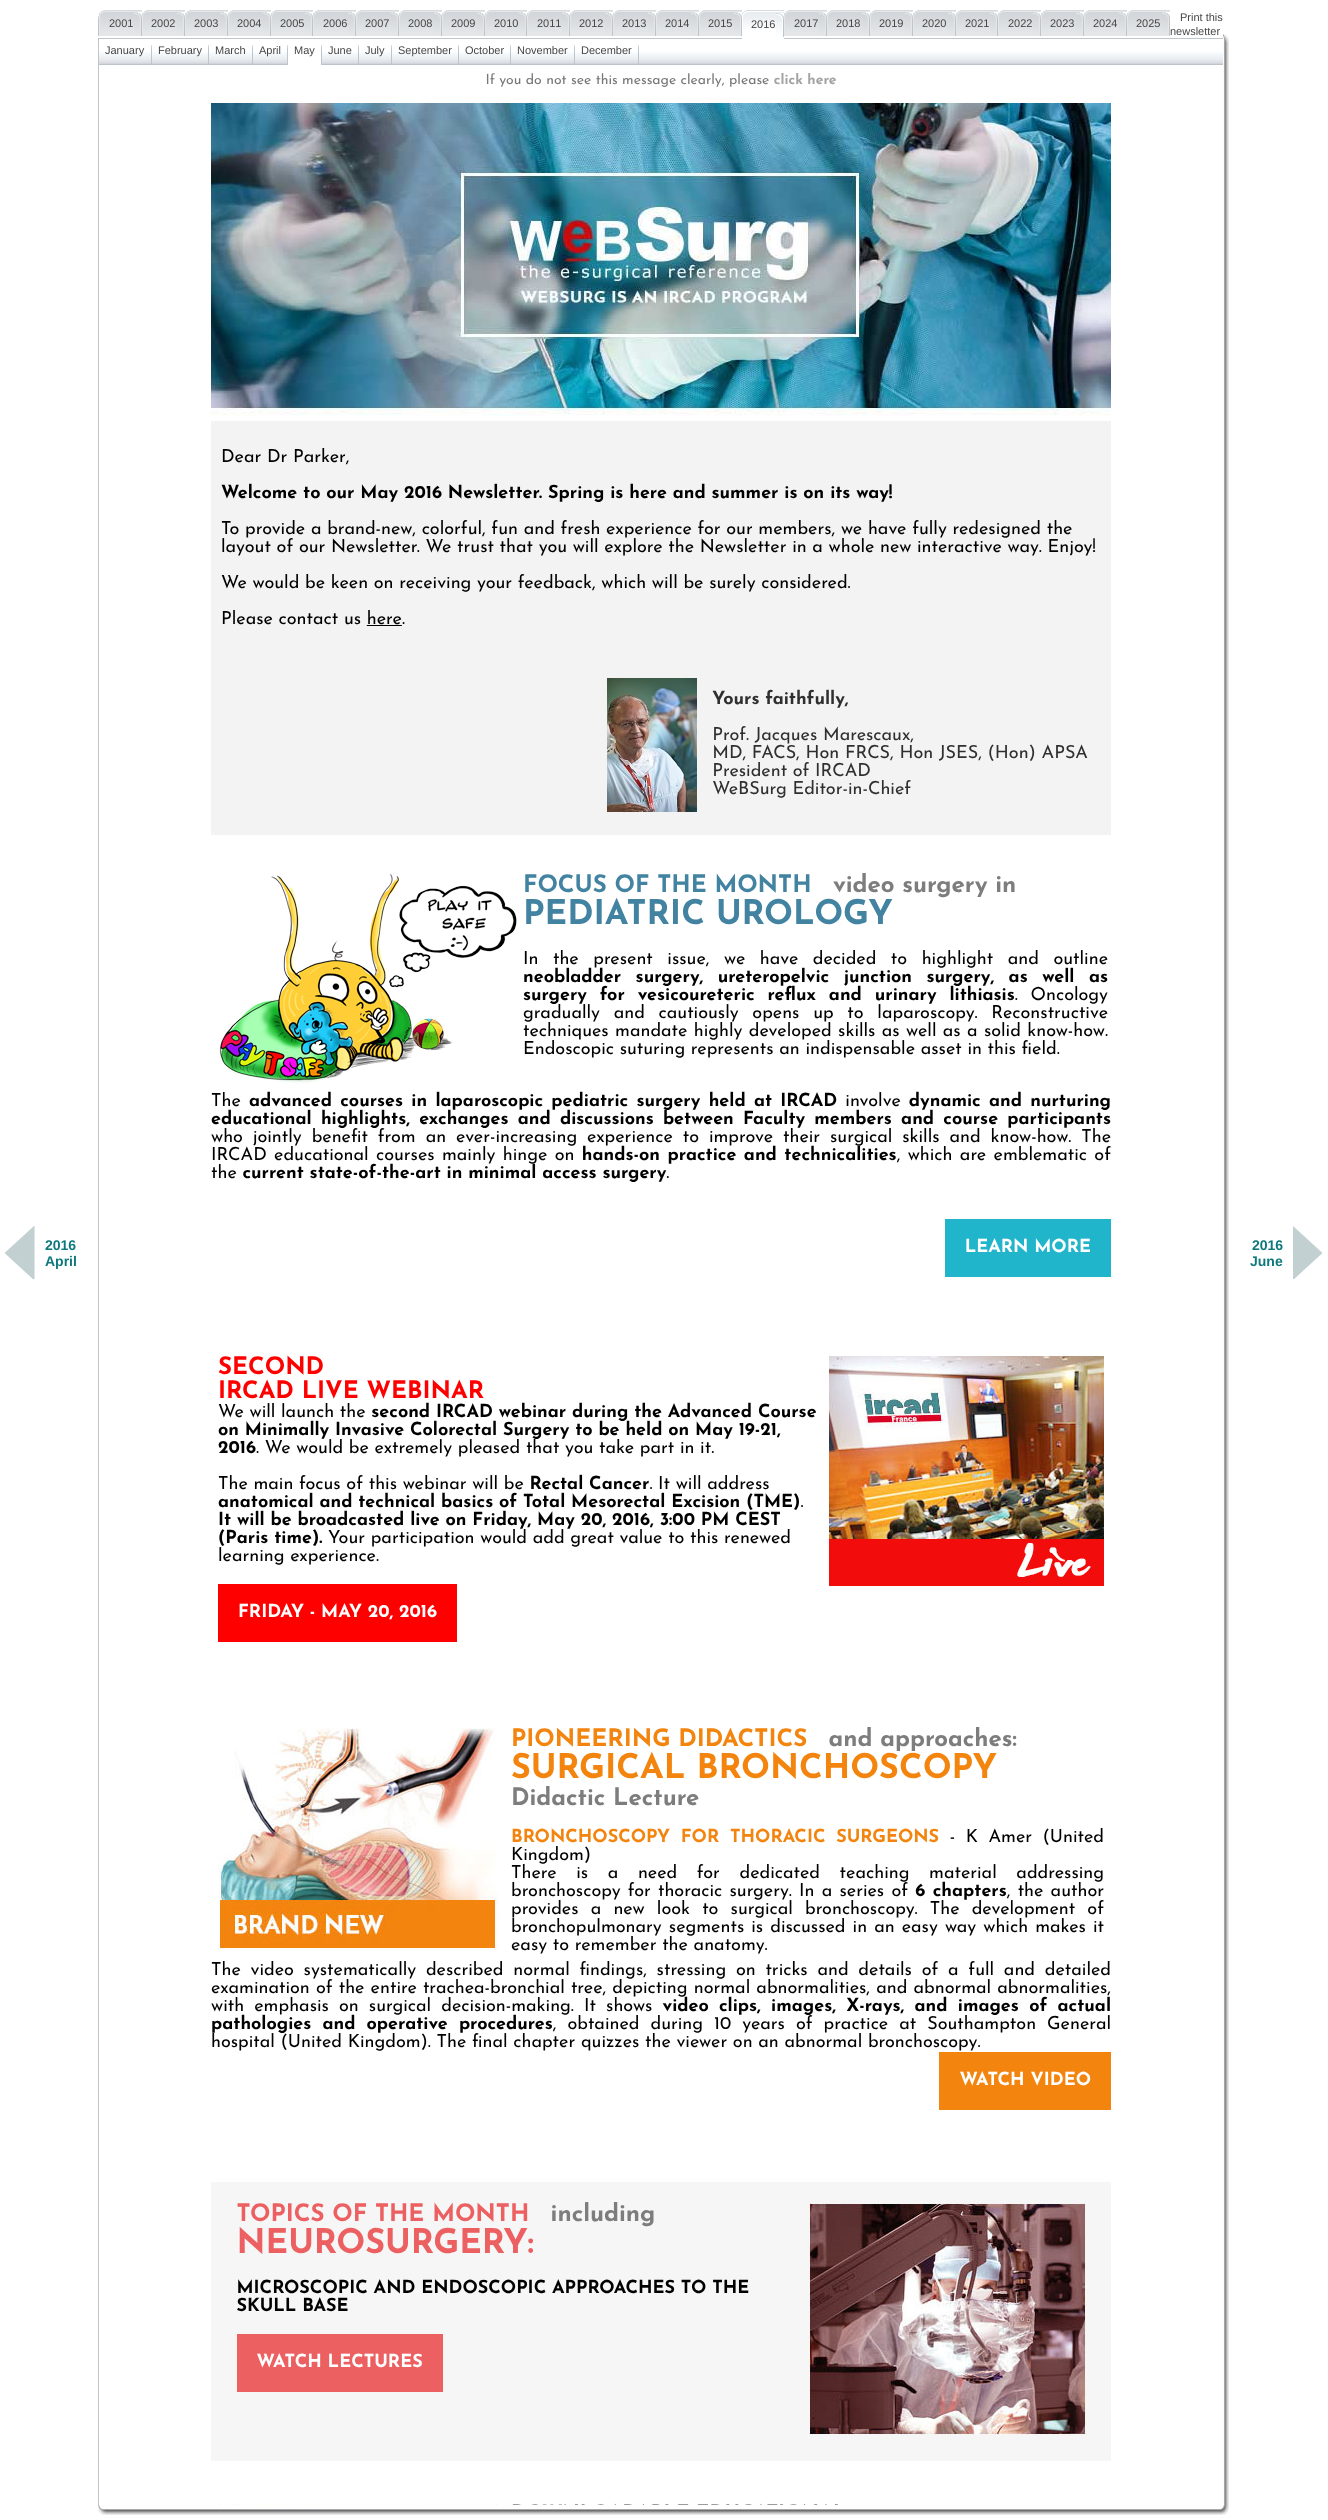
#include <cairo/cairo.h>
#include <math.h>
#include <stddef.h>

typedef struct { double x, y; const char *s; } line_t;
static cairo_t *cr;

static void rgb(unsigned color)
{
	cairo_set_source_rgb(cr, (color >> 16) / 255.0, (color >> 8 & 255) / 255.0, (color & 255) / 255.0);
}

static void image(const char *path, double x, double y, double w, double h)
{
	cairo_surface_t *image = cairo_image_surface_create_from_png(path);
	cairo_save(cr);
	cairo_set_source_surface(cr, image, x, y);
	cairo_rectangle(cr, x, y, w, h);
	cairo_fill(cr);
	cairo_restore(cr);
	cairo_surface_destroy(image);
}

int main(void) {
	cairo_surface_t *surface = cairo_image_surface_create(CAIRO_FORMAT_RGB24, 1328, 2520);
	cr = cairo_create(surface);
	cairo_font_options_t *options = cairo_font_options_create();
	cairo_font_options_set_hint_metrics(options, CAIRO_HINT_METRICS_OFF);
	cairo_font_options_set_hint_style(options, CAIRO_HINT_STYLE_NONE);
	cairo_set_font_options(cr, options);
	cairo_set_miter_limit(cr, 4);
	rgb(0xffffff);
	cairo_paint(cr);
	image("img/1.png", 5, 1226, 30, 53);
	rgb(0xc0c5ca);
	cairo_rectangle(cr, 98, 38, 644, 1);
	cairo_fill(cr);
	image("img/2.png", 98, 13, 1, 23);
	image("img/3.png", 99, 10, 43, 26);
	image("img/4.png", 134, 12, 8, 24);
	image("img/3.png", 142, 10, 43, 26);
	image("img/4.png", 177, 12, 8, 24);
	image("img/3.png", 185, 10, 43, 26);
	image("img/4.png", 220, 12, 8, 24);
	image("img/3.png", 228, 10, 43, 26);
	image("img/4.png", 263, 12, 8, 24);
	image("img/5.png", 271, 10, 42, 26);
	image("img/4.png", 305, 12, 8, 24);
	image("img/3.png", 313, 10, 43, 26);
	image("img/4.png", 348, 12, 8, 24);
	image("img/3.png", 356, 10, 43, 26);
	image("img/4.png", 391, 12, 8, 24);
	image("img/3.png", 399, 10, 43, 26);
	image("img/4.png", 434, 12, 8, 24);
	image("img/3.png", 442, 10, 43, 26);
	image("img/4.png", 477, 12, 8, 24);
	image("img/5.png", 485, 10, 42, 26);
	image("img/4.png", 519, 12, 8, 24);
	image("img/3.png", 527, 10, 43, 26);
	image("img/4.png", 562, 12, 8, 24);
	image("img/3.png", 570, 10, 43, 26);
	image("img/4.png", 605, 12, 8, 24);
	image("img/3.png", 613, 10, 43, 26);
	image("img/4.png", 648, 12, 8, 24);
	image("img/3.png", 656, 10, 43, 26);
	image("img/4.png", 691, 12, 8, 24);
	image("img/3.png", 699, 10, 43, 26);
	image("img/4.png", 734, 12, 8, 24);
	image("img/6.png", 742, 10, 42, 19);
	image("img/7.png", 776, 13, 8, 24);
	image("img/3.png", 784, 10, 43, 26);
	cairo_rectangle(cr, 784, 38, 439, 1);
	cairo_fill(cr);
	image("img/4.png", 819, 12, 8, 24);
	image("img/3.png", 827, 10, 43, 26);
	image("img/4.png", 862, 12, 8, 24);
	image("img/3.png", 870, 10, 43, 26);
	image("img/4.png", 905, 12, 8, 24);
	image("img/3.png", 913, 10, 43, 26);
	image("img/4.png", 948, 12, 8, 24);
	image("img/5.png", 956, 10, 42, 26);
	image("img/4.png", 990, 12, 8, 24);
	image("img/3.png", 998, 10, 43, 26);
	image("img/4.png", 1033, 12, 8, 24);
	image("img/3.png", 1041, 10, 43, 26);
	image("img/4.png", 1076, 12, 8, 24);
	image("img/3.png", 1084, 10, 43, 26);
	image("img/4.png", 1119, 12, 8, 24);
	image("img/3.png", 1127, 10, 43, 26);
	image("img/4.png", 1162, 12, 8, 24);
	image("img/8.png", 99, 52, 1124, 13);
	cairo_rectangle(cr, 98, 39, 1, 2466);
	cairo_fill(cr);
	image("img/9.png", 151, 45, 1, 20);
	image("img/9.png", 208, 45, 1, 20);
	image("img/9.png", 252, 45, 1, 20);
	image("img/9.png", 287, 45, 1, 20);
	image("img/9.png", 321, 45, 1, 20);
	rgb(0xffffff);
	cairo_rectangle(cr, 288, 52, 33, 13);
	cairo_fill(cr);
	image("img/9.png", 358, 45, 1, 20);
	image("img/9.png", 391, 45, 1, 20);
	image("img/9.png", 458, 45, 1, 20);
	image("img/9.png", 510, 45, 1, 20);
	image("img/9.png", 574, 45, 1, 20);
	image("img/9.png", 638, 45, 1, 20);
	image("img/10.png", 211, 72, 900, 2433);
	image("img/11.png", 1223, 43, 6, 2462);
	image("img/12.png", 1223, 34, 6, 9);
	image("img/13.png", 1293, 1226, 30, 53);
	image("img/14.png", 106, 2509, 1115, 6);
	image("img/15.png", 98, 2505, 8, 10);
	image("img/16.png", 1221, 2505, 8, 10);
	cairo_select_font_face(cr, "Liberation Sans", CAIRO_FONT_SLANT_NORMAL, CAIRO_FONT_WEIGHT_BOLD);
	cairo_set_font_size(cr, 14);
	rgb(0x0c787b);
	cairo_move_to(cr, 45, 1250);
	cairo_show_text(cr, "2016");
	cairo_move_to(cr, 45, 1266);
	cairo_show_text(cr, "April");
	cairo_select_font_face(cr, "Liberation Sans", CAIRO_FONT_SLANT_NORMAL, CAIRO_FONT_WEIGHT_NORMAL);
	cairo_set_font_size(cr, 11);
	rgb(0x444444);
	{
		static const line_t items[] = {
			{1180, 21, "Print this"},
			{1170, 35, "newsletter"},
			{109, 27, "2001"},
			{151, 27, "2002"},
			{194, 27, "2003"},
			{237, 27, "2004"},
			{280, 27, "2005"},
			{323, 27, "2006"},
			{365, 27, "2007"},
			{408, 27, "2008"},
			{451, 27, "2009"},
			{494, 27, "2010"},
			{537, 27, "2011"},
			{579, 27, "2012"},
			{622, 27, "2013"},
			{665, 27, "2014"},
			{708, 27, "2015"},
			{751, 28, "2016"},
			{794, 27, "2017"},
			{836, 27, "2018"},
			{879, 27, "2019"},
			{922, 27, "2020"},
			{965, 27, "2021"},
			{1008, 27, "2022"},
			{1050, 27, "2023"},
			{1093, 27, "2024"},
			{1136, 27, "2025"},
			{105, 54, "January"},
			{158, 54, "February"},
			{215, 54, "March"},
			{259, 54, "April"},
			{294, 54, "May"},
			{328, 54, "June"},
			{365, 54, "July"},
			{398, 54, "September"},
			{465, 54, "October"},
			{517, 54, "November"},
			{581, 54, "December"},
		};
		for (size_t i = 0; i < sizeof items / sizeof *items; i++) {
			cairo_move_to(cr, items[i].x, items[i].y);
			cairo_show_text(cr, items[i].s);
		}
	}
	cairo_select_font_face(cr, "Liberation Sans", CAIRO_FONT_SLANT_NORMAL, CAIRO_FONT_WEIGHT_BOLD);
	cairo_set_font_size(cr, 14);
	rgb(0x0c787b);
	cairo_move_to(cr, 1252, 1250);
	cairo_show_text(cr, "2016");
	cairo_move_to(cr, 1250, 1266);
	cairo_show_text(cr, "June");
	cairo_surface_write_to_png(surface, "page.png");
	cairo_font_options_destroy(options);
	cairo_destroy(cr);
	cairo_surface_destroy(surface);
	return 0;
}
